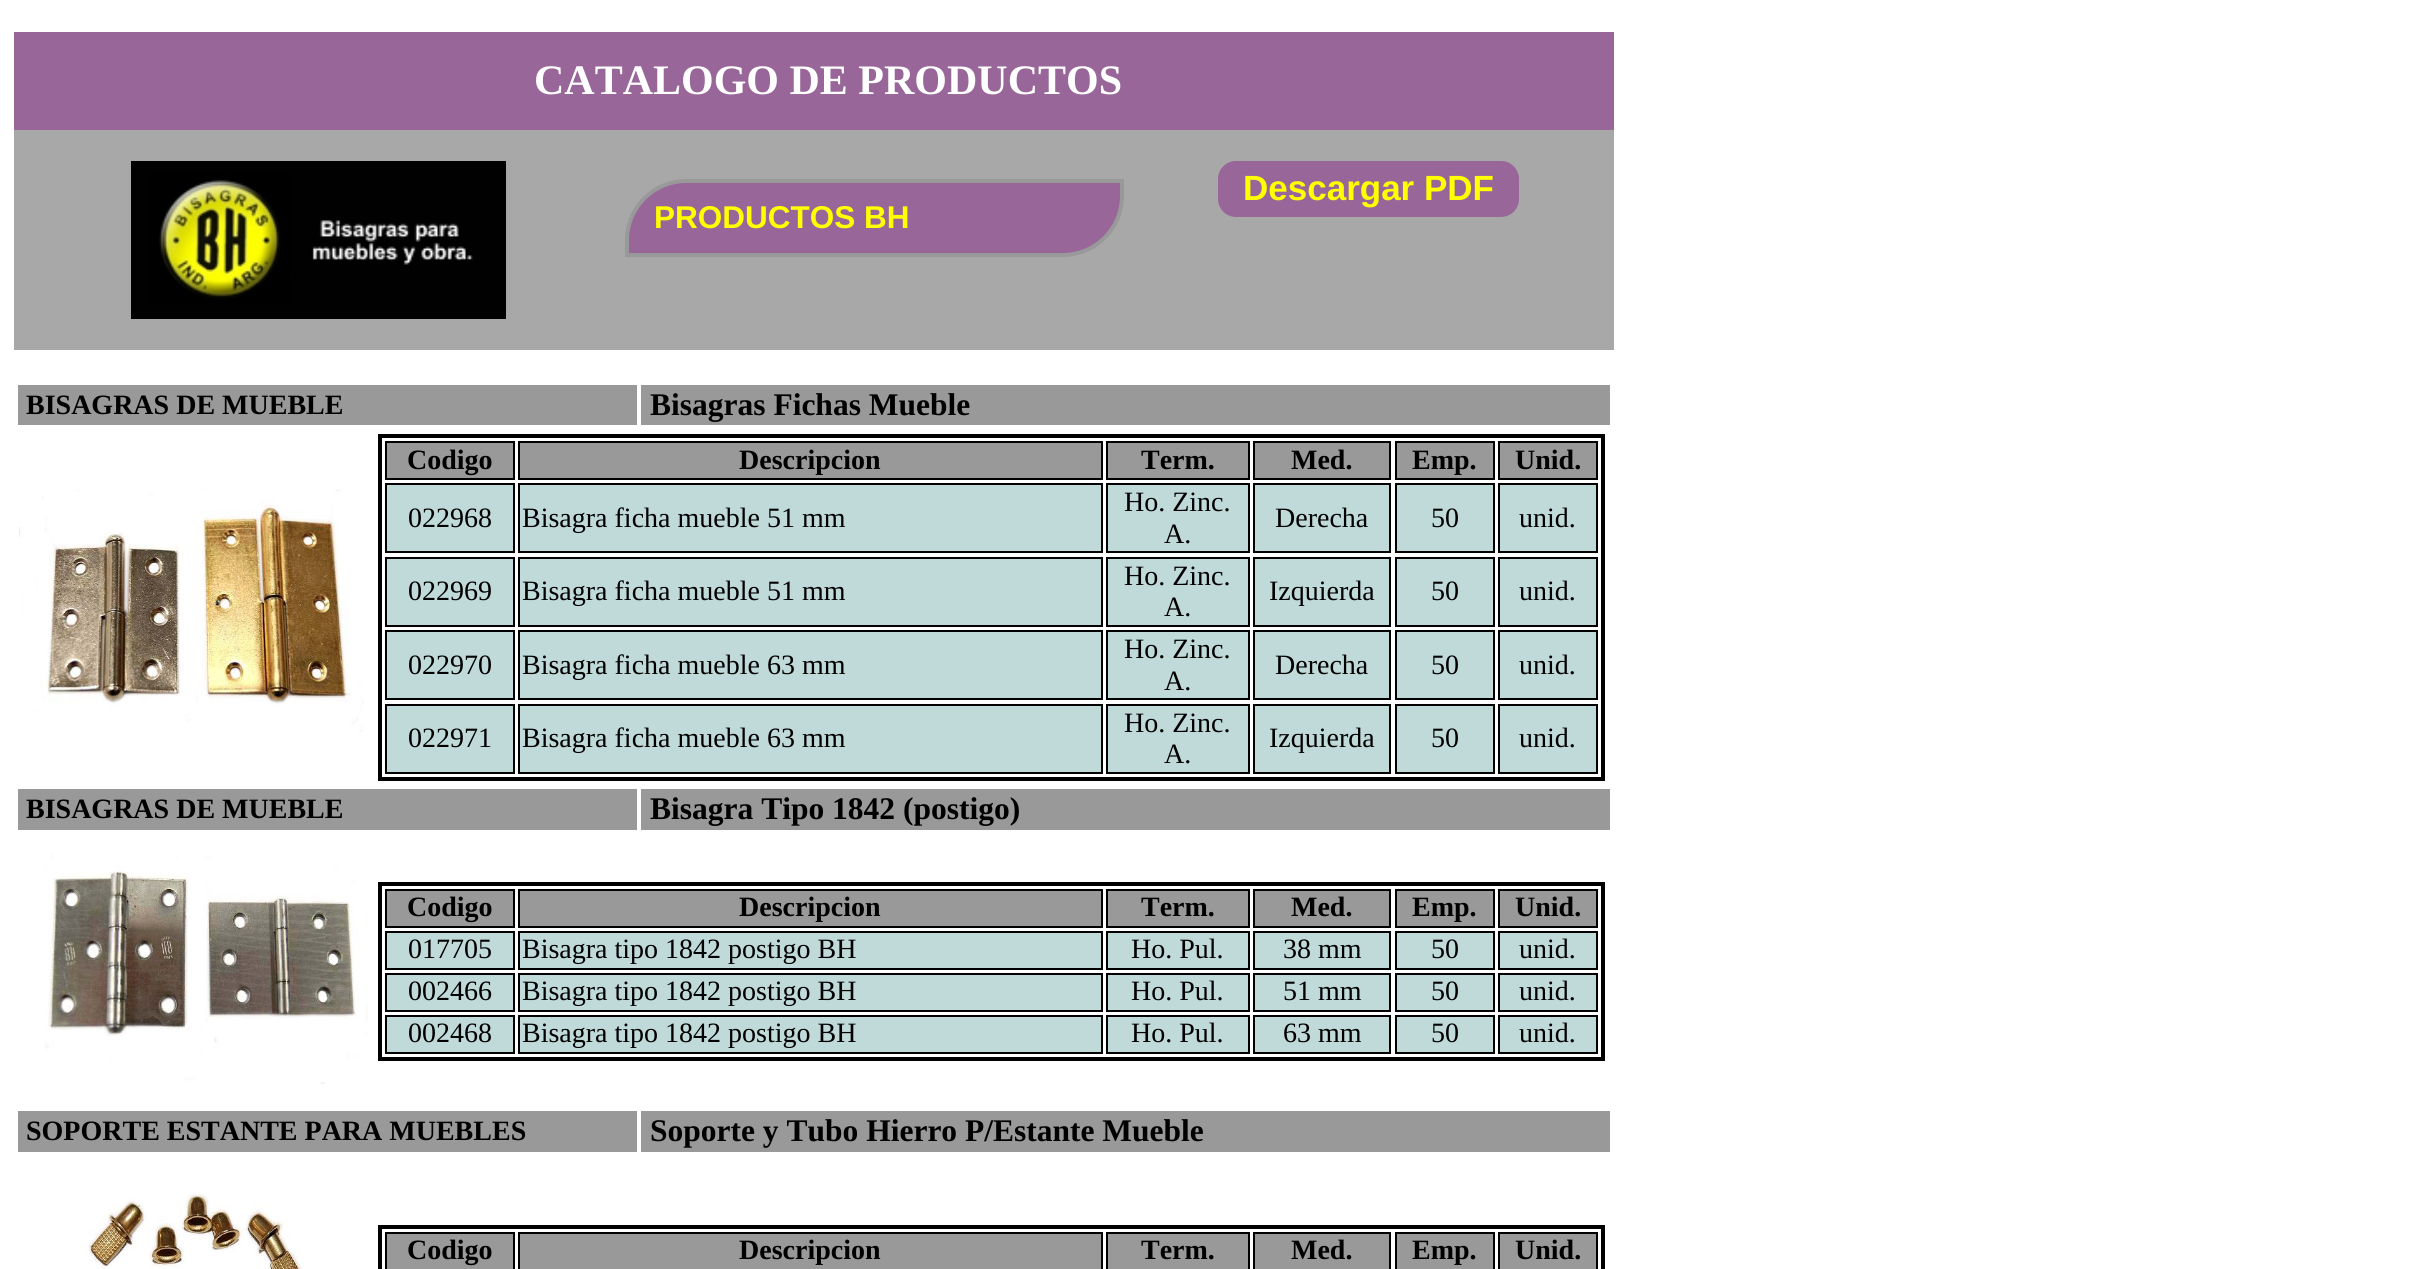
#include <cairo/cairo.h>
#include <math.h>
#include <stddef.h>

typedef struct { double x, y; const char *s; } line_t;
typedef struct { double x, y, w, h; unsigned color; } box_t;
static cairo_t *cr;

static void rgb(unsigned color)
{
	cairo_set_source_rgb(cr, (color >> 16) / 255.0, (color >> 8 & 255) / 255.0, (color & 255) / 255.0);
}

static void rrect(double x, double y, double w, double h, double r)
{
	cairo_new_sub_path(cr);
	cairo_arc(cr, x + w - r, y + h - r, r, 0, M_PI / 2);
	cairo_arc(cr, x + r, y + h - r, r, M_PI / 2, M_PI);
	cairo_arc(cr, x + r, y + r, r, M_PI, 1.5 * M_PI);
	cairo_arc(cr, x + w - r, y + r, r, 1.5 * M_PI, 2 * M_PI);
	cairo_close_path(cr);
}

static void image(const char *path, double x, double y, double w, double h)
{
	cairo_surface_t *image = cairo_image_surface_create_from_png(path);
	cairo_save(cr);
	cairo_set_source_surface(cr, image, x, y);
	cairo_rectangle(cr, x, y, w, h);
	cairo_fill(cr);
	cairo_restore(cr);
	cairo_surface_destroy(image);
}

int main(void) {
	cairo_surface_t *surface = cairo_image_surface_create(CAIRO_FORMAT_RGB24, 2414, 1269);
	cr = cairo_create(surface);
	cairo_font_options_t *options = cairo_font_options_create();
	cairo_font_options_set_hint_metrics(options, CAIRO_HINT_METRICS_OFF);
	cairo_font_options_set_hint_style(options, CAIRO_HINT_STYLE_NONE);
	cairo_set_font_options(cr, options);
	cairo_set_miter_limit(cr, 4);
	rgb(0xffffff);
	cairo_paint(cr);
	{
		static const box_t items[] = {
			{14, 32, 1600, 98, 0x996699},
			{14, 130, 1600, 31, 0xa8a8a8},
			{14, 161, 1600, 158, 0xa8a8a8},
		};
		for (size_t i = 0; i < sizeof items / sizeof *items; i++) {
			rgb(items[i].color);
			cairo_rectangle(cr, items[i].x, items[i].y, items[i].w, items[i].h);
			cairo_fill(cr);
		}
	}
	cairo_rectangle(cr, 133, 163, 371, 154);
	rgb(0x000000);
	cairo_set_line_width(cr, 4);
	cairo_stroke(cr);
	image("img/1.png", 135, 165, 367, 150);
	rgb(0x996699);
	rrect(1219, 162, 299, 54, 17);
	cairo_fill_preserve(cr);
	cairo_set_line_width(cr, 2);
	cairo_stroke(cr);
	cairo_new_path(cr);
	cairo_move_to(cr, 686, 181);
	cairo_line_to(cr, 1122, 181);
	cairo_line_to(cr, 1122, 196);
	cairo_curve_to(cr, 1122, 228.5, 1095.5, 255, 1063, 255);
	cairo_line_to(cr, 627, 255);
	cairo_line_to(cr, 627, 240);
	cairo_curve_to(cr, 627, 207.5, 653.5, 181, 686, 181);
	cairo_close_path(cr);
	cairo_fill_preserve(cr);
	rgb(0x999999);
	cairo_set_line_width(cr, 4);
	cairo_stroke(cr);
	{
		static const box_t items[] = {
			{14, 319, 1600, 31, 0xa8a8a8},
			{18, 385, 619, 40, 0x999999},
			{641, 385, 969, 40, 0x999999},
		};
		for (size_t i = 0; i < sizeof items / sizeof *items; i++) {
			rgb(items[i].color);
			cairo_rectangle(cr, items[i].x, items[i].y, items[i].w, items[i].h);
			cairo_fill(cr);
		}
	}
	image("img/2.png", 19, 489, 345, 243);
	cairo_rectangle(cr, 380, 436, 1223, 343);
	rgb(0x000000);
	cairo_stroke(cr);
	rgb(0x999999);
	cairo_rectangle(cr, 386, 442, 128, 37);
	cairo_fill_preserve(cr);
	rgb(0x000000);
	cairo_set_line_width(cr, 2);
	cairo_stroke(cr);
	rgb(0x999999);
	cairo_rectangle(cr, 519, 442, 583, 37);
	cairo_fill_preserve(cr);
	rgb(0x000000);
	cairo_stroke(cr);
	rgb(0x999999);
	cairo_rectangle(cr, 1107, 442, 142, 37);
	cairo_fill_preserve(cr);
	rgb(0x000000);
	cairo_stroke(cr);
	rgb(0x999999);
	cairo_rectangle(cr, 1254, 442, 136, 37);
	cairo_fill_preserve(cr);
	rgb(0x000000);
	cairo_stroke(cr);
	rgb(0x999999);
	cairo_rectangle(cr, 1396, 442, 98, 37);
	cairo_fill_preserve(cr);
	rgb(0x000000);
	cairo_stroke(cr);
	rgb(0x999999);
	cairo_rectangle(cr, 1499, 442, 98, 37);
	cairo_fill_preserve(cr);
	rgb(0x000000);
	cairo_stroke(cr);
	rgb(0xc0d9d9);
	cairo_rectangle(cr, 386, 484, 128, 68);
	cairo_fill_preserve(cr);
	rgb(0x000000);
	cairo_stroke(cr);
	rgb(0xc0d9d9);
	cairo_rectangle(cr, 519, 484, 583, 68);
	cairo_fill_preserve(cr);
	rgb(0x000000);
	cairo_stroke(cr);
	rgb(0xc0d9d9);
	cairo_rectangle(cr, 1107, 484, 142, 68);
	cairo_fill_preserve(cr);
	rgb(0x000000);
	cairo_stroke(cr);
	rgb(0xc0d9d9);
	cairo_rectangle(cr, 1254, 484, 136, 68);
	cairo_fill_preserve(cr);
	rgb(0x000000);
	cairo_stroke(cr);
	rgb(0xc0d9d9);
	cairo_rectangle(cr, 1396, 484, 98, 68);
	cairo_fill_preserve(cr);
	rgb(0x000000);
	cairo_stroke(cr);
	rgb(0xc0d9d9);
	cairo_rectangle(cr, 1499, 484, 98, 68);
	cairo_fill_preserve(cr);
	rgb(0x000000);
	cairo_stroke(cr);
	rgb(0xc0d9d9);
	cairo_rectangle(cr, 386, 558, 128, 68);
	cairo_fill_preserve(cr);
	rgb(0x000000);
	cairo_stroke(cr);
	rgb(0xc0d9d9);
	cairo_rectangle(cr, 519, 558, 583, 68);
	cairo_fill_preserve(cr);
	rgb(0x000000);
	cairo_stroke(cr);
	rgb(0xc0d9d9);
	cairo_rectangle(cr, 1107, 558, 142, 68);
	cairo_fill_preserve(cr);
	rgb(0x000000);
	cairo_stroke(cr);
	rgb(0xc0d9d9);
	cairo_rectangle(cr, 1254, 558, 136, 68);
	cairo_fill_preserve(cr);
	rgb(0x000000);
	cairo_stroke(cr);
	rgb(0xc0d9d9);
	cairo_rectangle(cr, 1396, 558, 98, 68);
	cairo_fill_preserve(cr);
	rgb(0x000000);
	cairo_stroke(cr);
	rgb(0xc0d9d9);
	cairo_rectangle(cr, 1499, 558, 98, 68);
	cairo_fill_preserve(cr);
	rgb(0x000000);
	cairo_stroke(cr);
	rgb(0xc0d9d9);
	cairo_rectangle(cr, 386, 631, 128, 68);
	cairo_fill_preserve(cr);
	rgb(0x000000);
	cairo_stroke(cr);
	rgb(0xc0d9d9);
	cairo_rectangle(cr, 519, 631, 583, 68);
	cairo_fill_preserve(cr);
	rgb(0x000000);
	cairo_stroke(cr);
	rgb(0xc0d9d9);
	cairo_rectangle(cr, 1107, 631, 142, 68);
	cairo_fill_preserve(cr);
	rgb(0x000000);
	cairo_stroke(cr);
	rgb(0xc0d9d9);
	cairo_rectangle(cr, 1254, 631, 136, 68);
	cairo_fill_preserve(cr);
	rgb(0x000000);
	cairo_stroke(cr);
	rgb(0xc0d9d9);
	cairo_rectangle(cr, 1396, 631, 98, 68);
	cairo_fill_preserve(cr);
	rgb(0x000000);
	cairo_stroke(cr);
	rgb(0xc0d9d9);
	cairo_rectangle(cr, 1499, 631, 98, 68);
	cairo_fill_preserve(cr);
	rgb(0x000000);
	cairo_stroke(cr);
	rgb(0xc0d9d9);
	cairo_rectangle(cr, 386, 705, 128, 68);
	cairo_fill_preserve(cr);
	rgb(0x000000);
	cairo_stroke(cr);
	rgb(0xc0d9d9);
	cairo_rectangle(cr, 519, 705, 583, 68);
	cairo_fill_preserve(cr);
	rgb(0x000000);
	cairo_stroke(cr);
	rgb(0xc0d9d9);
	cairo_rectangle(cr, 1107, 705, 142, 68);
	cairo_fill_preserve(cr);
	rgb(0x000000);
	cairo_stroke(cr);
	rgb(0xc0d9d9);
	cairo_rectangle(cr, 1254, 705, 136, 68);
	cairo_fill_preserve(cr);
	rgb(0x000000);
	cairo_stroke(cr);
	rgb(0xc0d9d9);
	cairo_rectangle(cr, 1396, 705, 98, 68);
	cairo_fill_preserve(cr);
	rgb(0x000000);
	cairo_stroke(cr);
	rgb(0xc0d9d9);
	cairo_rectangle(cr, 1499, 705, 98, 68);
	cairo_fill_preserve(cr);
	rgb(0x000000);
	cairo_stroke(cr);
	rgb(0x999999);
	cairo_rectangle(cr, 18, 789, 619, 41);
	cairo_fill(cr);
	cairo_rectangle(cr, 641, 789, 969, 41);
	cairo_fill(cr);
	image("img/3.png", 44, 855, 324, 229);
	cairo_rectangle(cr, 380, 884, 1223, 175);
	rgb(0x000000);
	cairo_set_line_width(cr, 4);
	cairo_stroke(cr);
	rgb(0x999999);
	cairo_rectangle(cr, 386, 890, 128, 37);
	cairo_fill_preserve(cr);
	rgb(0x000000);
	cairo_set_line_width(cr, 2);
	cairo_stroke(cr);
	rgb(0x999999);
	cairo_rectangle(cr, 519, 890, 583, 37);
	cairo_fill_preserve(cr);
	rgb(0x000000);
	cairo_stroke(cr);
	rgb(0x999999);
	cairo_rectangle(cr, 1107, 890, 142, 37);
	cairo_fill_preserve(cr);
	rgb(0x000000);
	cairo_stroke(cr);
	rgb(0x999999);
	cairo_rectangle(cr, 1254, 890, 136, 37);
	cairo_fill_preserve(cr);
	rgb(0x000000);
	cairo_stroke(cr);
	rgb(0x999999);
	cairo_rectangle(cr, 1396, 890, 98, 37);
	cairo_fill_preserve(cr);
	rgb(0x000000);
	cairo_stroke(cr);
	rgb(0x999999);
	cairo_rectangle(cr, 1499, 890, 98, 37);
	cairo_fill_preserve(cr);
	rgb(0x000000);
	cairo_stroke(cr);
	rgb(0xc0d9d9);
	cairo_rectangle(cr, 386, 932, 128, 37);
	cairo_fill_preserve(cr);
	rgb(0x000000);
	cairo_stroke(cr);
	rgb(0xc0d9d9);
	cairo_rectangle(cr, 519, 932, 583, 37);
	cairo_fill_preserve(cr);
	rgb(0x000000);
	cairo_stroke(cr);
	rgb(0xc0d9d9);
	cairo_rectangle(cr, 1107, 932, 142, 37);
	cairo_fill_preserve(cr);
	rgb(0x000000);
	cairo_stroke(cr);
	rgb(0xc0d9d9);
	cairo_rectangle(cr, 1254, 932, 136, 37);
	cairo_fill_preserve(cr);
	rgb(0x000000);
	cairo_stroke(cr);
	rgb(0xc0d9d9);
	cairo_rectangle(cr, 1396, 932, 98, 37);
	cairo_fill_preserve(cr);
	rgb(0x000000);
	cairo_stroke(cr);
	rgb(0xc0d9d9);
	cairo_rectangle(cr, 1499, 932, 98, 37);
	cairo_fill_preserve(cr);
	rgb(0x000000);
	cairo_stroke(cr);
	rgb(0xc0d9d9);
	cairo_rectangle(cr, 386, 974, 128, 37);
	cairo_fill_preserve(cr);
	rgb(0x000000);
	cairo_stroke(cr);
	rgb(0xc0d9d9);
	cairo_rectangle(cr, 519, 974, 583, 37);
	cairo_fill_preserve(cr);
	rgb(0x000000);
	cairo_stroke(cr);
	rgb(0xc0d9d9);
	cairo_rectangle(cr, 1107, 974, 142, 37);
	cairo_fill_preserve(cr);
	rgb(0x000000);
	cairo_stroke(cr);
	rgb(0xc0d9d9);
	cairo_rectangle(cr, 1254, 974, 136, 37);
	cairo_fill_preserve(cr);
	rgb(0x000000);
	cairo_stroke(cr);
	rgb(0xc0d9d9);
	cairo_rectangle(cr, 1396, 974, 98, 37);
	cairo_fill_preserve(cr);
	rgb(0x000000);
	cairo_stroke(cr);
	rgb(0xc0d9d9);
	cairo_rectangle(cr, 1499, 974, 98, 37);
	cairo_fill_preserve(cr);
	rgb(0x000000);
	cairo_stroke(cr);
	rgb(0xc0d9d9);
	cairo_rectangle(cr, 386, 1016, 128, 37);
	cairo_fill_preserve(cr);
	rgb(0x000000);
	cairo_stroke(cr);
	rgb(0xc0d9d9);
	cairo_rectangle(cr, 519, 1016, 583, 37);
	cairo_fill_preserve(cr);
	rgb(0x000000);
	cairo_stroke(cr);
	rgb(0xc0d9d9);
	cairo_rectangle(cr, 1107, 1016, 142, 37);
	cairo_fill_preserve(cr);
	rgb(0x000000);
	cairo_stroke(cr);
	rgb(0xc0d9d9);
	cairo_rectangle(cr, 1254, 1016, 136, 37);
	cairo_fill_preserve(cr);
	rgb(0x000000);
	cairo_stroke(cr);
	rgb(0xc0d9d9);
	cairo_rectangle(cr, 1396, 1016, 98, 37);
	cairo_fill_preserve(cr);
	rgb(0x000000);
	cairo_stroke(cr);
	rgb(0xc0d9d9);
	cairo_rectangle(cr, 1499, 1016, 98, 37);
	cairo_fill_preserve(cr);
	rgb(0x000000);
	cairo_stroke(cr);
	rgb(0x999999);
	cairo_rectangle(cr, 18, 1111, 619, 41);
	cairo_fill(cr);
	cairo_rectangle(cr, 641, 1111, 969, 41);
	cairo_fill(cr);
	image("img/4.png", 88, 1194, 220, 75);
	cairo_rectangle(cr, 380, 1227, 1223, 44);
	rgb(0x000000);
	cairo_set_line_width(cr, 4);
	cairo_stroke(cr);
	rgb(0x999999);
	cairo_rectangle(cr, 386, 1233, 128, 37);
	cairo_fill_preserve(cr);
	rgb(0x000000);
	cairo_set_line_width(cr, 2);
	cairo_stroke(cr);
	rgb(0x999999);
	cairo_rectangle(cr, 519, 1233, 583, 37);
	cairo_fill_preserve(cr);
	rgb(0x000000);
	cairo_stroke(cr);
	rgb(0x999999);
	cairo_rectangle(cr, 1107, 1233, 142, 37);
	cairo_fill_preserve(cr);
	rgb(0x000000);
	cairo_stroke(cr);
	rgb(0x999999);
	cairo_rectangle(cr, 1254, 1233, 136, 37);
	cairo_fill_preserve(cr);
	rgb(0x000000);
	cairo_stroke(cr);
	rgb(0x999999);
	cairo_rectangle(cr, 1396, 1233, 98, 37);
	cairo_fill_preserve(cr);
	rgb(0x000000);
	cairo_stroke(cr);
	rgb(0x999999);
	cairo_rectangle(cr, 1499, 1233, 98, 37);
	cairo_fill_preserve(cr);
	rgb(0x000000);
	cairo_stroke(cr);
	cairo_select_font_face(cr, "Liberation Serif", CAIRO_FONT_SLANT_NORMAL, CAIRO_FONT_WEIGHT_BOLD);
	cairo_set_font_size(cr, 42);
	rgb(0xffffff);
	cairo_move_to(cr, 534, 94);
	cairo_show_text(cr, "CATALOGO DE PRODUCTOS");
	cairo_select_font_face(cr, "Liberation Sans", CAIRO_FONT_SLANT_NORMAL, CAIRO_FONT_WEIGHT_BOLD);
	cairo_set_font_size(cr, 35);
	rgb(0xffff00);
	cairo_move_to(cr, 1243, 200);
	cairo_show_text(cr, "Descargar PDF");
	cairo_set_font_size(cr, 31.5);
	cairo_move_to(cr, 654, 228);
	cairo_show_text(cr, "PRODUCTOS BH");
	cairo_select_font_face(cr, "Liberation Serif", CAIRO_FONT_SLANT_NORMAL, CAIRO_FONT_WEIGHT_BOLD);
	cairo_set_font_size(cr, 28);
	rgb(0x000000);
	cairo_move_to(cr, 26, 414);
	cairo_show_text(cr, "BISAGRAS DE MUEBLE");
	cairo_set_font_size(cr, 31.5);
	cairo_move_to(cr, 650, 415);
	cairo_show_text(cr, "Bisagras Fichas Mueble");
	cairo_set_font_size(cr, 28);
	{
		static const line_t items[] = {
			{407, 469, "Codigo"},
			{739, 469, "Descripcion"},
			{1141, 469, "Term."},
			{1291, 469, "Med."},
			{1412, 469, "Emp."},
			{1515, 469, "Unid."},
		};
		for (size_t i = 0; i < sizeof items / sizeof *items; i++) {
			cairo_move_to(cr, items[i].x, items[i].y);
			cairo_show_text(cr, items[i].s);
		}
	}
	cairo_select_font_face(cr, "Liberation Serif", CAIRO_FONT_SLANT_NORMAL, CAIRO_FONT_WEIGHT_NORMAL);
	{
		static const line_t items[] = {
			{408, 527, "022968"},
			{522, 527, "Bisagra ficha mueble 51 mm"},
			{1124, 511, "Ho. Zinc."},
			{1164, 543, "A."},
			{1275, 527, "Derecha"},
			{1431, 527, "50"},
			{1519, 527, "unid."},
			{408, 600, "022969"},
			{522, 600, "Bisagra ficha mueble 51 mm"},
			{1124, 585, "Ho. Zinc."},
			{1164, 616, "A."},
			{1269, 600, "Izquierda"},
			{1431, 600, "50"},
			{1519, 600, "unid."},
			{408, 674, "022970"},
			{522, 674, "Bisagra ficha mueble 63 mm"},
			{1124, 658, "Ho. Zinc."},
			{1164, 690, "A."},
			{1275, 674, "Derecha"},
			{1431, 674, "50"},
			{1519, 674, "unid."},
			{408, 747, "022971"},
			{522, 747, "Bisagra ficha mueble 63 mm"},
			{1124, 732, "Ho. Zinc."},
			{1164, 763, "A."},
			{1269, 747, "Izquierda"},
			{1431, 747, "50"},
			{1519, 747, "unid."},
		};
		for (size_t i = 0; i < sizeof items / sizeof *items; i++) {
			cairo_move_to(cr, items[i].x, items[i].y);
			cairo_show_text(cr, items[i].s);
		}
	}
	cairo_select_font_face(cr, "Liberation Serif", CAIRO_FONT_SLANT_NORMAL, CAIRO_FONT_WEIGHT_BOLD);
	cairo_move_to(cr, 26, 818);
	cairo_show_text(cr, "BISAGRAS DE MUEBLE");
	cairo_set_font_size(cr, 31.5);
	cairo_move_to(cr, 650, 819);
	cairo_show_text(cr, "Bisagra Tipo 1842 (postigo)");
	cairo_set_font_size(cr, 28);
	{
		static const line_t items[] = {
			{407, 916, "Codigo"},
			{739, 916, "Descripcion"},
			{1141, 916, "Term."},
			{1291, 916, "Med."},
			{1412, 916, "Emp."},
			{1515, 916, "Unid."},
		};
		for (size_t i = 0; i < sizeof items / sizeof *items; i++) {
			cairo_move_to(cr, items[i].x, items[i].y);
			cairo_show_text(cr, items[i].s);
		}
	}
	cairo_select_font_face(cr, "Liberation Serif", CAIRO_FONT_SLANT_NORMAL, CAIRO_FONT_WEIGHT_NORMAL);
	{
		static const line_t items[] = {
			{408, 958, "017705"},
			{522, 958, "Bisagra tipo 1842 postigo BH"},
			{1131, 958, "Ho. Pul."},
			{1283, 958, "38 mm"},
			{1431, 958, "50"},
			{1519, 958, "unid."},
			{408, 1000, "002466"},
			{522, 1000, "Bisagra tipo 1842 postigo BH"},
			{1131, 1000, "Ho. Pul."},
			{1283, 1000, "51 mm"},
			{1431, 1000, "50"},
			{1519, 1000, "unid."},
			{408, 1042, "002468"},
			{522, 1042, "Bisagra tipo 1842 postigo BH"},
			{1131, 1042, "Ho. Pul."},
			{1283, 1042, "63 mm"},
			{1431, 1042, "50"},
			{1519, 1042, "unid."},
		};
		for (size_t i = 0; i < sizeof items / sizeof *items; i++) {
			cairo_move_to(cr, items[i].x, items[i].y);
			cairo_show_text(cr, items[i].s);
		}
	}
	cairo_select_font_face(cr, "Liberation Serif", CAIRO_FONT_SLANT_NORMAL, CAIRO_FONT_WEIGHT_BOLD);
	cairo_move_to(cr, 26, 1140);
	cairo_show_text(cr, "SOPORTE ESTANTE PARA MUEBLES");
	cairo_set_font_size(cr, 31.5);
	cairo_move_to(cr, 650, 1141);
	cairo_show_text(cr, "Soporte y Tubo Hierro P/Estante Mueble");
	cairo_set_font_size(cr, 28);
	{
		static const line_t items[] = {
			{407, 1259, "Codigo"},
			{739, 1259, "Descripcion"},
			{1141, 1259, "Term."},
			{1291, 1259, "Med."},
			{1412, 1259, "Emp."},
			{1515, 1259, "Unid."},
		};
		for (size_t i = 0; i < sizeof items / sizeof *items; i++) {
			cairo_move_to(cr, items[i].x, items[i].y);
			cairo_show_text(cr, items[i].s);
		}
	}
	cairo_surface_write_to_png(surface, "page.png");
	cairo_font_options_destroy(options);
	cairo_destroy(cr);
	cairo_surface_destroy(surface);
	return 0;
}
